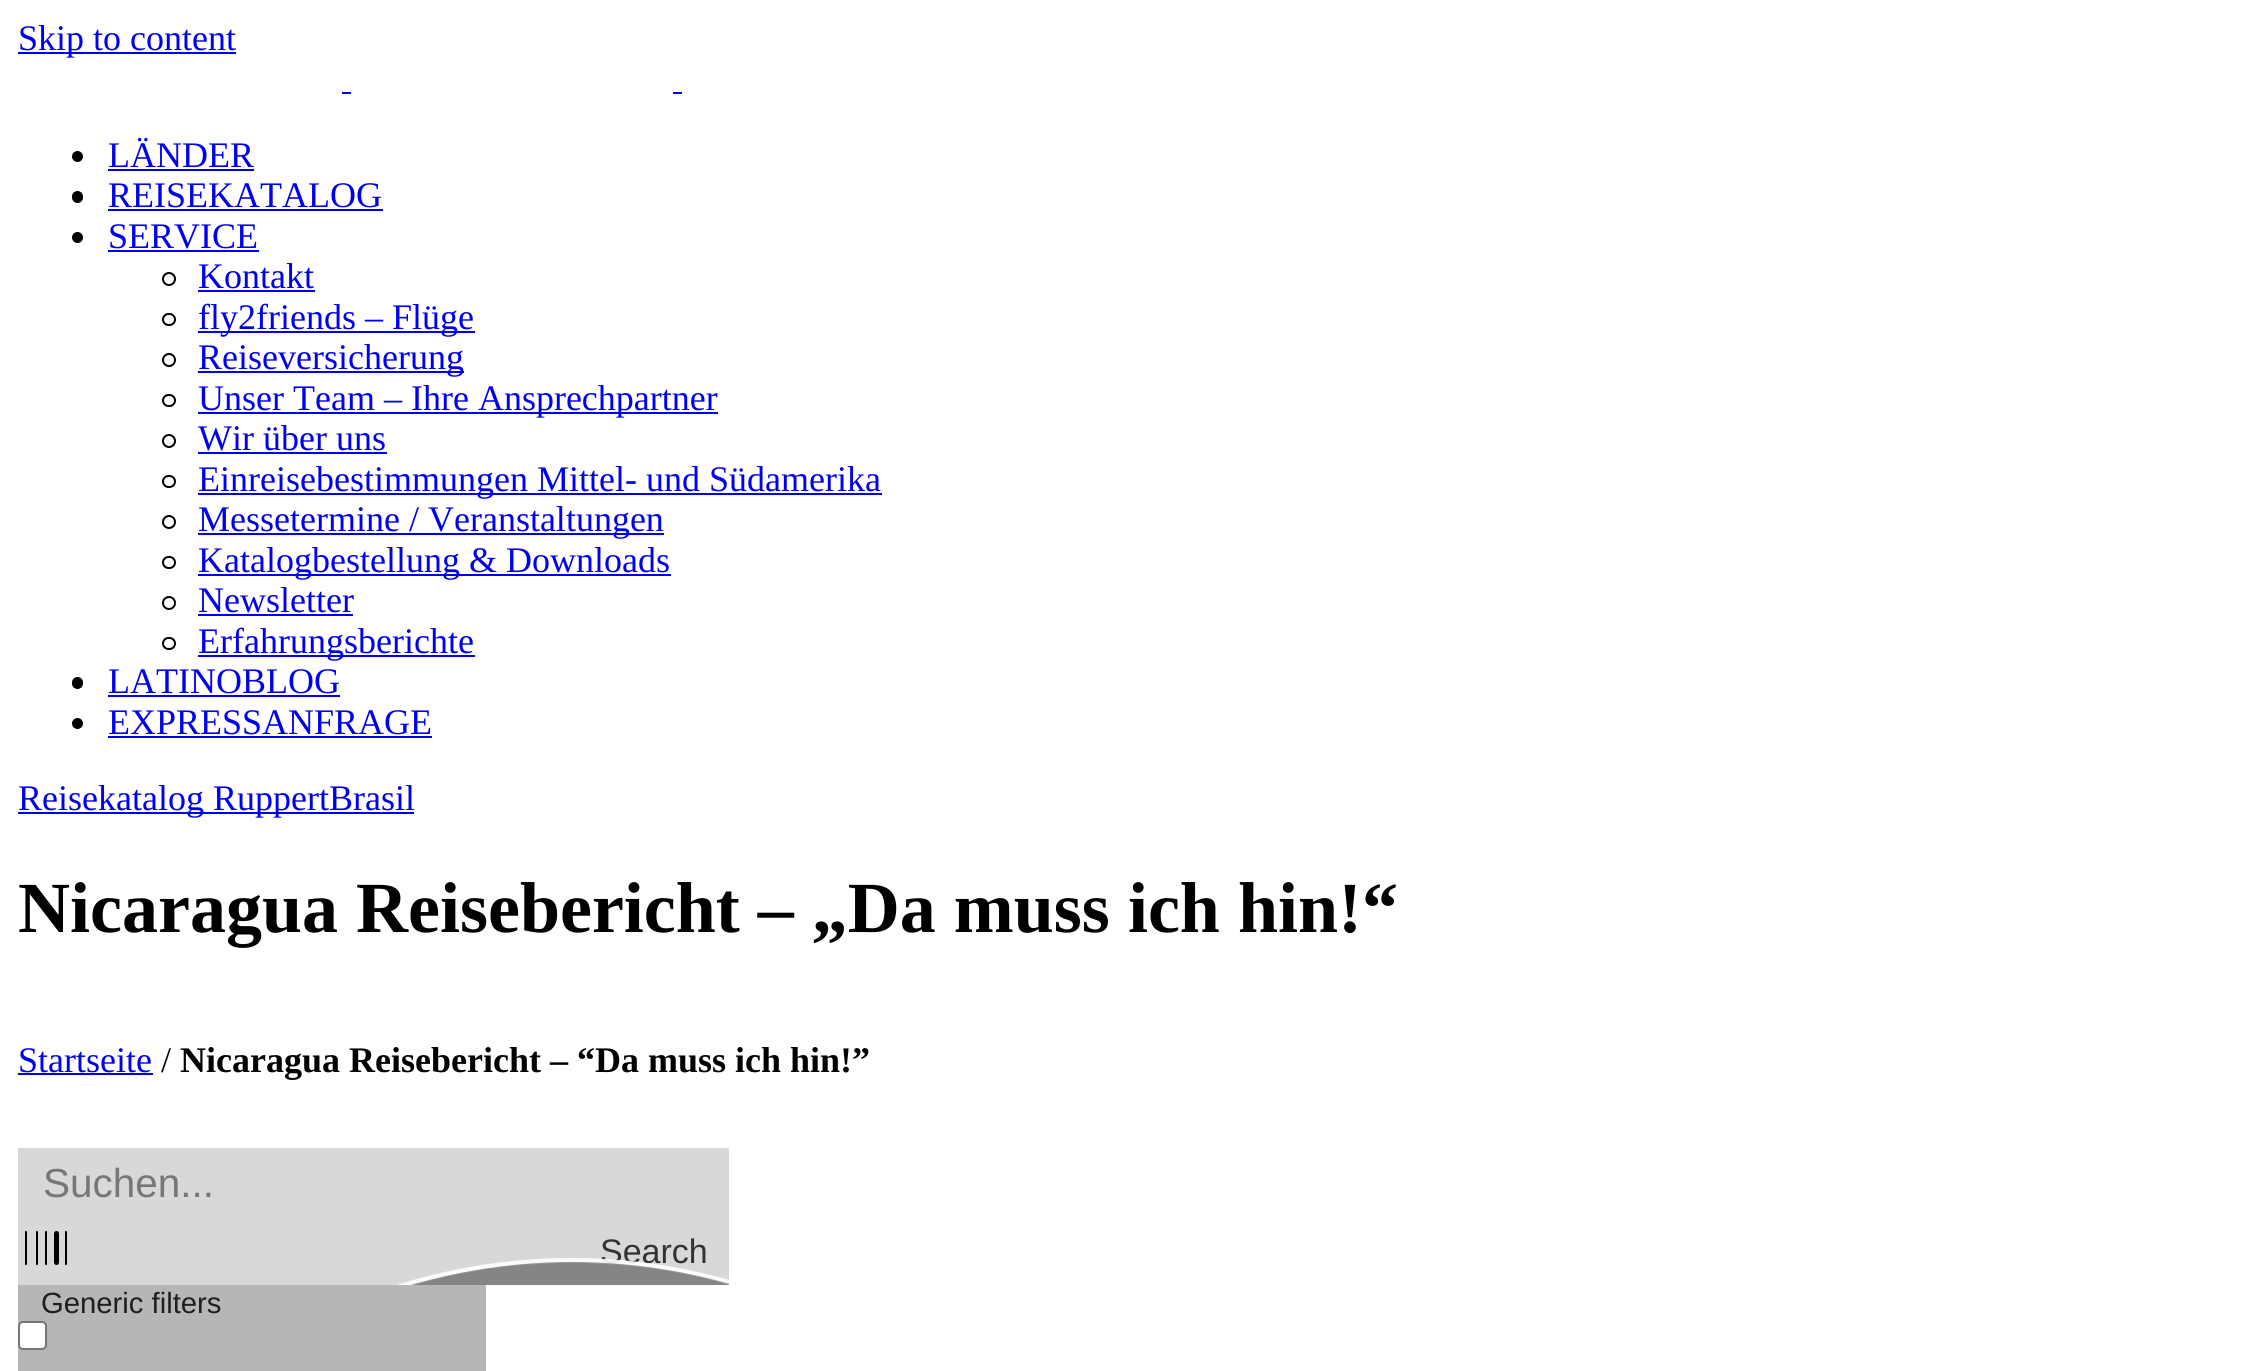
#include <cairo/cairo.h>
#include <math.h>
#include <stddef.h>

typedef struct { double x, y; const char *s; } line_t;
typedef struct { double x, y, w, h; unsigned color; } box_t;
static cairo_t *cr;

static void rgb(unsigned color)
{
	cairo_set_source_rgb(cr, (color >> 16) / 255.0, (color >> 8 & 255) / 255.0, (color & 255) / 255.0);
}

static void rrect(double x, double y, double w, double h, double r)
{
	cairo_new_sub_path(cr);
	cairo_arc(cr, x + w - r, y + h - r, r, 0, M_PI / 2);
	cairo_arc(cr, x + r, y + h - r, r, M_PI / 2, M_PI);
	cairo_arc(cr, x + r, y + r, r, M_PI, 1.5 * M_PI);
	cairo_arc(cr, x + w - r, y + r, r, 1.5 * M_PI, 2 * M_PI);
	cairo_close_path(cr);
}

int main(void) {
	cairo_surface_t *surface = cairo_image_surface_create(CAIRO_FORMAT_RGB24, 2259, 1371);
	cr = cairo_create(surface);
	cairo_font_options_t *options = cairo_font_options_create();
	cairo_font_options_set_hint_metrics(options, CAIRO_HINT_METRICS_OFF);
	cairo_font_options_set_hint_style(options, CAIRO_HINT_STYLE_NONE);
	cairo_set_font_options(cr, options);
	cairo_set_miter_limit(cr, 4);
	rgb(0xffffff);
	cairo_paint(cr);
	{
		static const box_t items[] = {
			{18, 52, 218, 2, 0x0000ee},
			{342, 92, 9, 2, 0x0000ee},
			{673, 92, 9, 2, 0x0000ee},
		};
		for (size_t i = 0; i < sizeof items / sizeof *items; i++) {
			rgb(items[i].color);
			cairo_rectangle(cr, items[i].x, items[i].y, items[i].w, items[i].h);
			cairo_fill(cr);
		}
	}
	rgb(0x000000);
	cairo_arc(cr, 77.5, 156.5, 5.5, 0, 2 * M_PI);
	cairo_fill(cr);
	rgb(0x0000ee);
	cairo_rectangle(cr, 108, 169, 146, 2);
	cairo_fill(cr);
	rgb(0x000000);
	rrect(72, 191, 11, 12, 5.5);
	cairo_fill(cr);
	rgb(0x0000ee);
	cairo_rectangle(cr, 108, 209, 275, 2);
	cairo_fill(cr);
	rgb(0x000000);
	cairo_arc(cr, 77.5, 237.5, 5.5, 0, 2 * M_PI);
	cairo_fill(cr);
	rgb(0x0000ee);
	cairo_rectangle(cr, 108, 250, 151, 2);
	cairo_fill(cr);
	cairo_arc(cr, 169, 279, 6, 0, 2 * M_PI);
	rgb(0x000000);
	cairo_stroke(cr);
	rgb(0x0000ee);
	cairo_rectangle(cr, 198, 290, 117, 2);
	cairo_fill(cr);
	rrect(163, 314, 12, 11, 5.5);
	rgb(0x000000);
	cairo_stroke(cr);
	rgb(0x0000ee);
	cairo_rectangle(cr, 198, 331, 277, 2);
	cairo_fill(cr);
	cairo_arc(cr, 169, 360, 6, 0, 2 * M_PI);
	rgb(0x000000);
	cairo_stroke(cr);
	rgb(0x0000ee);
	cairo_rectangle(cr, 198, 371, 266, 2);
	cairo_fill(cr);
	rrect(163, 395, 12, 11, 5.5);
	rgb(0x000000);
	cairo_stroke(cr);
	rgb(0x0000ee);
	cairo_rectangle(cr, 198, 412, 520, 2);
	cairo_fill(cr);
	cairo_arc(cr, 169, 441, 6, 0, 2 * M_PI);
	rgb(0x000000);
	cairo_stroke(cr);
	rgb(0x0000ee);
	cairo_rectangle(cr, 198, 452, 189, 2);
	cairo_fill(cr);
	rrect(163, 476, 12, 11, 5.5);
	rgb(0x000000);
	cairo_stroke(cr);
	rgb(0x0000ee);
	cairo_rectangle(cr, 198, 493, 684, 2);
	cairo_fill(cr);
	cairo_arc(cr, 169, 522, 6, 0, 2 * M_PI);
	rgb(0x000000);
	cairo_stroke(cr);
	rgb(0x0000ee);
	cairo_rectangle(cr, 198, 533, 466, 2);
	cairo_fill(cr);
	rrect(163, 557, 12, 11, 5.5);
	rgb(0x000000);
	cairo_stroke(cr);
	rgb(0x0000ee);
	cairo_rectangle(cr, 198, 574, 473, 2);
	cairo_fill(cr);
	cairo_arc(cr, 169, 603, 6, 0, 2 * M_PI);
	rgb(0x000000);
	cairo_stroke(cr);
	rgb(0x0000ee);
	cairo_rectangle(cr, 198, 614, 155, 2);
	cairo_fill(cr);
	rrect(163, 638, 12, 11, 5.5);
	rgb(0x000000);
	cairo_stroke(cr);
	rgb(0x0000ee);
	cairo_rectangle(cr, 198, 655, 277, 2);
	cairo_fill(cr);
	rgb(0x000000);
	rrect(72, 677, 11, 12, 5.5);
	cairo_fill(cr);
	rgb(0x0000ee);
	cairo_rectangle(cr, 108, 695, 232, 2);
	cairo_fill(cr);
	rgb(0x000000);
	cairo_arc(cr, 77.5, 723.5, 5.5, 0, 2 * M_PI);
	cairo_fill(cr);
	{
		static const box_t items[] = {
			{108, 736, 324, 2, 0x0000ee},
			{18, 812, 396, 2, 0x0000ee},
			{18, 1073, 135, 2, 0x0000ee},
			{18, 1148, 711, 137, 0xd8d8d8},
		};
		for (size_t i = 0; i < sizeof items / sizeof *items; i++) {
			rgb(items[i].color);
			cairo_rectangle(cr, items[i].x, items[i].y, items[i].w, items[i].h);
			cairo_fill(cr);
		}
	}
	rgb(0x000000);
	rrect(25, 1231, 2, 34, 1);
	cairo_fill(cr);
	rrect(36, 1231, 2, 34, 1);
	cairo_fill(cr);
	rrect(45, 1231, 2, 34, 1);
	cairo_fill(cr);
	rrect(54, 1231, 5, 34, 2.5);
	cairo_fill(cr);
	rrect(65, 1231, 2, 34, 1);
	cairo_fill(cr);
	rgb(0xb6b6b6);
	cairo_rectangle(cr, 18, 1285, 468, 86);
	cairo_fill(cr);
	rgb(0xffffff);
	rrect(19, 1322, 27, 27, 4);
	cairo_fill_preserve(cr);
	rgb(0x767676);
	cairo_stroke(cr);
	cairo_select_font_face(cr, "Liberation Serif", CAIRO_FONT_SLANT_NORMAL, CAIRO_FONT_WEIGHT_NORMAL);
	cairo_set_font_size(cr, 36);
	rgb(0x0000ee);
	{
		static const line_t items[] = {
			{18, 50, "Skip to content"},
			{108, 167, "LÄNDER"},
			{108, 207, "REISEKATALOG"},
			{108, 248, "SERVICE"},
			{198, 288, "Kontakt"},
			{198, 329, "fly2friends – Flüge"},
			{198, 369, "Reiseversicherung"},
			{198, 410, "Unser Team – Ihre Ansprechpartner"},
			{198, 450, "Wir über uns"},
			{198, 491, "Einreisebestimmungen Mittel- und Südamerika"},
			{198, 531, "Messetermine / Veranstaltungen"},
			{198, 572, "Katalogbestellung & Downloads"},
			{198, 612, "Newsletter"},
			{198, 653, "Erfahrungsberichte"},
			{108, 693, "LATINOBLOG"},
			{108, 734, "EXPRESSANFRAGE"},
			{18, 810, "Reisekatalog RuppertBrasil"},
		};
		for (size_t i = 0; i < sizeof items / sizeof *items; i++) {
			cairo_move_to(cr, items[i].x, items[i].y);
			cairo_show_text(cr, items[i].s);
		}
	}
	cairo_select_font_face(cr, "Liberation Serif", CAIRO_FONT_SLANT_NORMAL, CAIRO_FONT_WEIGHT_BOLD);
	cairo_set_font_size(cr, 72);
	rgb(0x000000);
	cairo_move_to(cr, 18, 932);
	cairo_show_text(cr, "Nicaragua Reisebericht – „Da muss ich hin!“");
	cairo_select_font_face(cr, "Liberation Serif", CAIRO_FONT_SLANT_NORMAL, CAIRO_FONT_WEIGHT_NORMAL);
	cairo_set_font_size(cr, 36);
	rgb(0x0000ee);
	cairo_move_to(cr, 18, 1072);
	cairo_show_text(cr, "Startseite");
	rgb(0x000000);
	cairo_move_to(cr, 161, 1072);
	cairo_show_text(cr, "/");
	cairo_select_font_face(cr, "Liberation Serif", CAIRO_FONT_SLANT_NORMAL, CAIRO_FONT_WEIGHT_BOLD);
	cairo_move_to(cr, 180, 1072);
	cairo_show_text(cr, "Nicaragua Reisebericht – “Da muss ich hin!”");
	cairo_select_font_face(cr, "Liberation Sans", CAIRO_FONT_SLANT_NORMAL, CAIRO_FONT_WEIGHT_NORMAL);
	cairo_set_font_size(cr, 40.5);
	rgb(0x777777);
	cairo_move_to(cr, 43, 1197);
	cairo_show_text(cr, "Suchen...");
	cairo_set_font_size(cr, 34);
	rgb(0x333333);
	cairo_move_to(cr, 600, 1263);
	cairo_show_text(cr, "Search");
	cairo_save(cr);
	cairo_rectangle(cr, 18, 1148, 711, 137);
	cairo_clip(cr);
	rrect(-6.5, 1260.5, 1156, 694, 578);
	cairo_set_source_rgba(cr, 1, 1, 1, 0.9);
	cairo_set_line_width(cr, 5);
	cairo_stroke(cr);
	cairo_restore(cr);
	cairo_set_font_size(cr, 29.25);
	rgb(0x1f1f1f);
	cairo_move_to(cr, 41, 1313);
	cairo_show_text(cr, "Generic filters");
	cairo_save(cr);
	cairo_rectangle(cr, 18, 1148, 711, 137);
	cairo_clip(cr);
	cairo_set_source_rgba(cr, 0.2, 0.2, 0.2, 0.5);
	rrect(-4, 1262, 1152, 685, 576);
	cairo_fill(cr);
	cairo_restore(cr);
	cairo_surface_write_to_png(surface, "page.png");
	cairo_font_options_destroy(options);
	cairo_destroy(cr);
	cairo_surface_destroy(surface);
	return 0;
}
